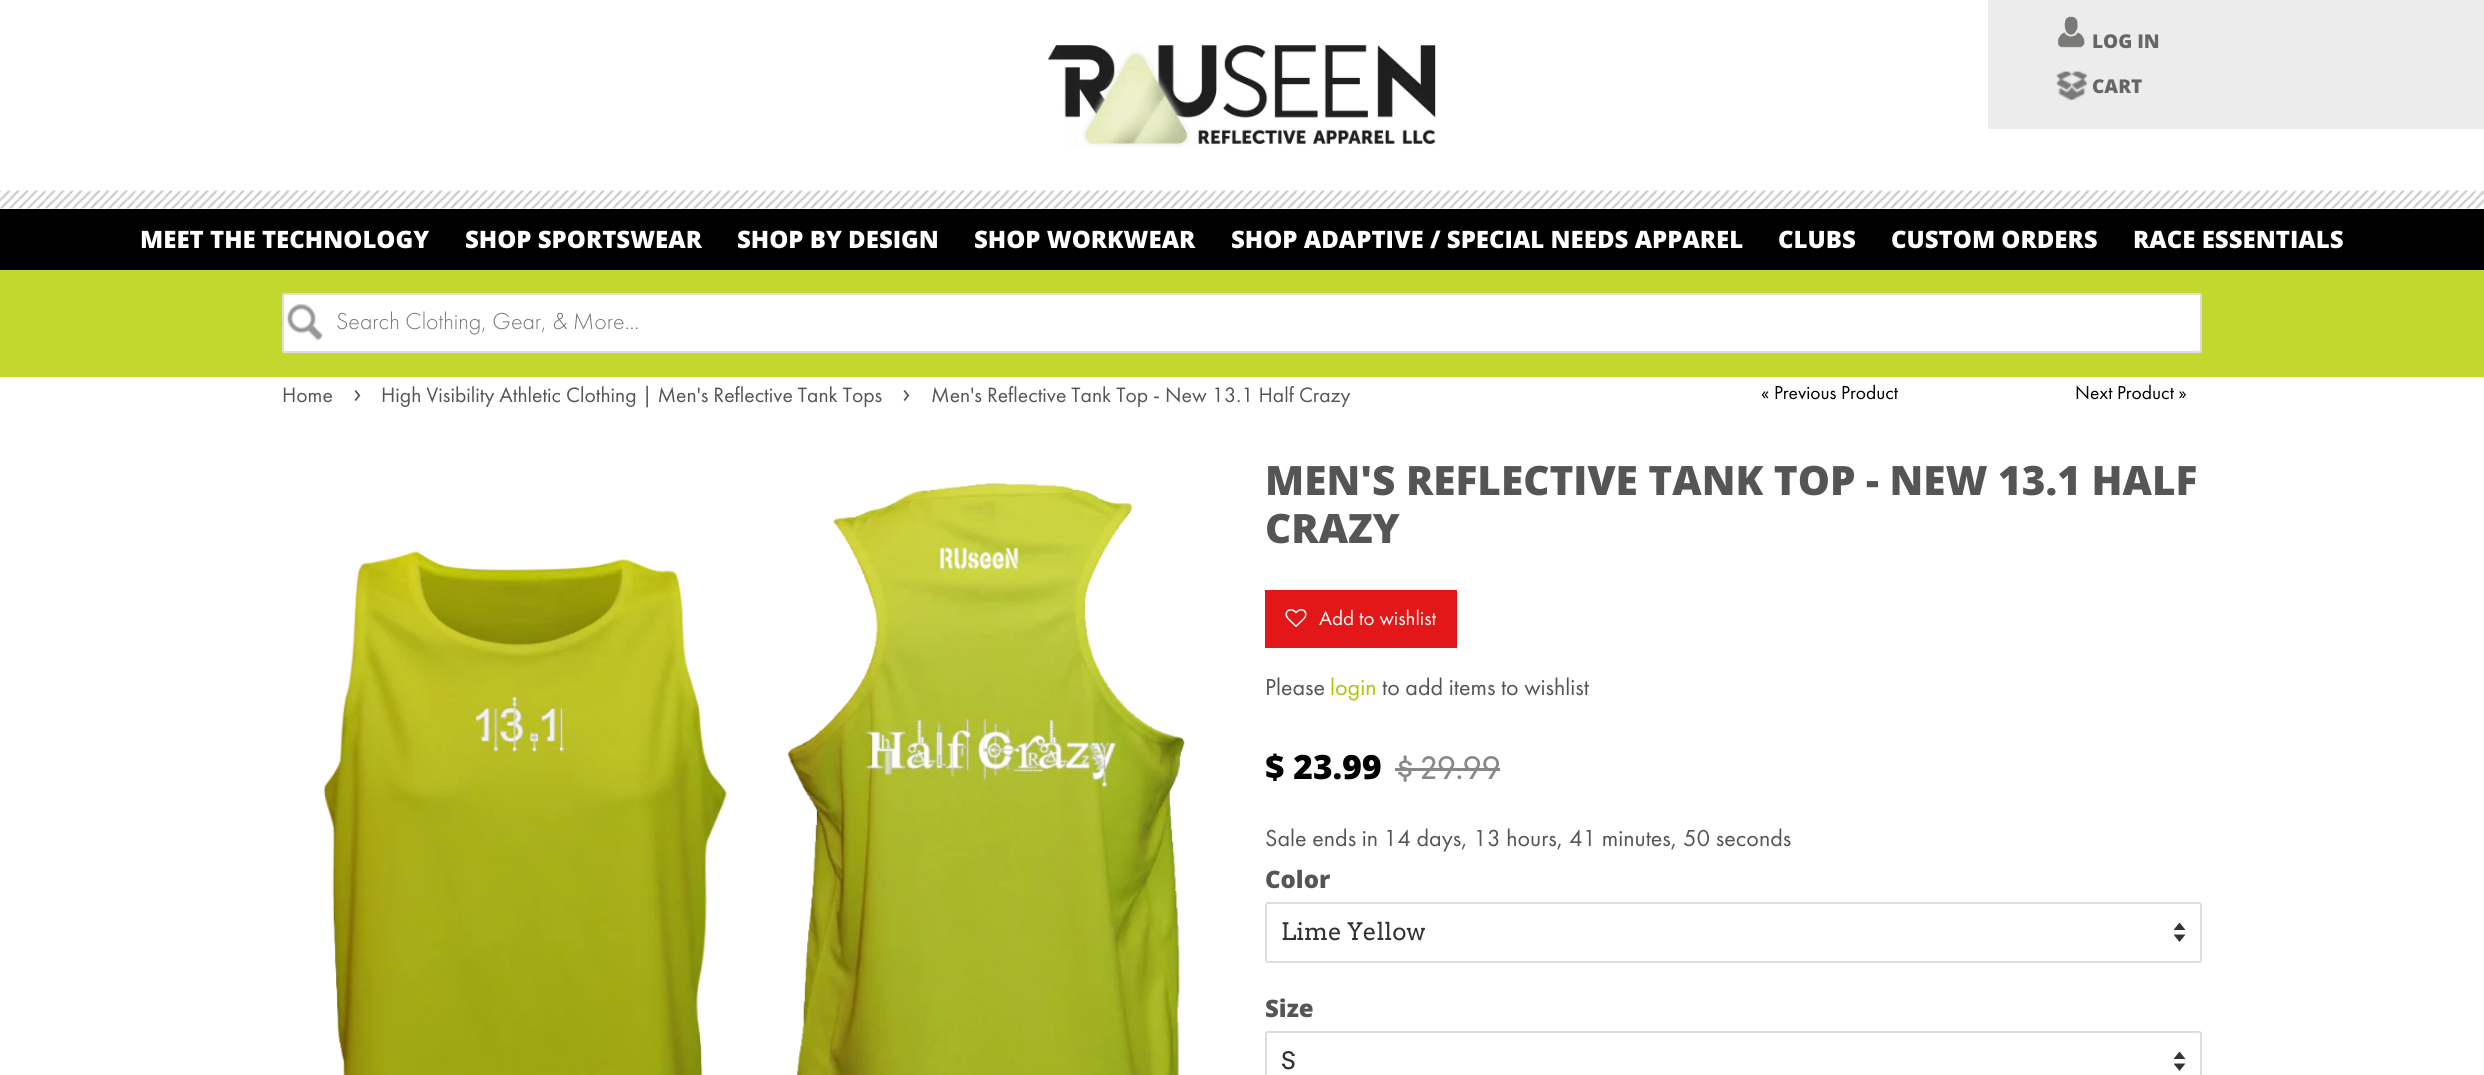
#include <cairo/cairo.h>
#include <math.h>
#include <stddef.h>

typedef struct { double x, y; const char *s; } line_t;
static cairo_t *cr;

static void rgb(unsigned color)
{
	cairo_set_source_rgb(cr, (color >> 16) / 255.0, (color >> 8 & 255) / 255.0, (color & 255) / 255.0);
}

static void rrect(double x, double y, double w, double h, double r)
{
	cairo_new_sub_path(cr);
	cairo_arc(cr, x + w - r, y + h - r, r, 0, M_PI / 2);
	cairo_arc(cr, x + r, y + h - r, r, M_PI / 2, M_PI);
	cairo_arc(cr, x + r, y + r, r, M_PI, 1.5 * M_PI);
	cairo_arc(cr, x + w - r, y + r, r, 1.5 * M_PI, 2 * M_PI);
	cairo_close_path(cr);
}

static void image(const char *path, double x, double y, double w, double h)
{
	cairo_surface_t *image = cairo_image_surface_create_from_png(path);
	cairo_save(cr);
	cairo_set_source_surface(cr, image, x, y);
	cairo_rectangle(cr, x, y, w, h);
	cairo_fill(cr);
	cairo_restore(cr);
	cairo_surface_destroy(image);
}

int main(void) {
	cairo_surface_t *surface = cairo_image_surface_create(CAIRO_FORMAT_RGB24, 2484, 1075);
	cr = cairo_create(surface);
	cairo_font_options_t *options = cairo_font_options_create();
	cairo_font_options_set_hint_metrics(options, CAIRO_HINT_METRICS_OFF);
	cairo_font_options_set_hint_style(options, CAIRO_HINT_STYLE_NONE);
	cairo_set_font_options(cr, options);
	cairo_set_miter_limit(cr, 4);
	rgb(0xffffff);
	cairo_paint(cr);
	rgb(0xececec);
	cairo_rectangle(cr, 1988, 0, 496, 129);
	cairo_fill(cr);
	image("img/1.png", 2058, 16, 27, 32);
	image("img/2.png", 2056, 71, 31, 30);
	image("img/3.png", 1048, 45, 388, 102);
	image("img/4.png", 0, 190, 2484, 19);
	rgb(0x000000);
	cairo_rectangle(cr, 0, 209, 2484, 61);
	cairo_fill(cr);
	rgb(0xc3d82f);
	cairo_rectangle(cr, 0, 270, 2484, 107);
	cairo_fill(cr);
	rgb(0xffffff);
	rrect(282, 293, 1920, 60, 3);
	cairo_fill(cr);
	image("img/5.png", 286, 303, 37, 38);
	rrect(283, 294, 1918, 58, 2);
	rgb(0xdddddd);
	cairo_stroke(cr);
	image("img/6.png", 323, 483, 862, 592);
	rgb(0xe31717);
	cairo_rectangle(cr, 1265, 590, 192, 58);
	cairo_fill(cr);
	image("img/7.png", 1285, 609, 22, 18);
	rgb(0x888888);
	cairo_rectangle(cr, 1395, 768, 105, 3);
	cairo_fill(cr);
	image("img/8.png", 2174, 923, 12, 19);
	rrect(1266, 903, 935, 59, 2);
	rgb(0xdddddd);
	cairo_stroke(cr);
	image("img/8.png", 2174, 1052, 12, 19);
	rrect(1266, 1032, 935, 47, 2);
	cairo_stroke(cr);
	cairo_select_font_face(cr, "Open Sans ExtraBold", CAIRO_FONT_SLANT_NORMAL, CAIRO_FONT_WEIGHT_NORMAL);
	cairo_set_font_size(cr, 19);
	rgb(0x666666);
	cairo_move_to(cr, 2092, 48);
	cairo_show_text(cr, "LOG IN");
	cairo_move_to(cr, 2092, 93);
	cairo_show_text(cr, "CART");
	cairo_set_font_size(cr, 24);
	rgb(0xffffff);
	{
		static const line_t items[] = {
			{140, 248, "MEET THE TECHNOLOGY"},
			{465, 248, "SHOP SPORTSWEAR"},
			{737, 248, "SHOP BY DESIGN"},
			{974, 248, "SHOP WORKWEAR"},
			{1231, 248, "SHOP ADAPTIVE / SPECIAL NEEDS APPAREL"},
			{1778, 248, "CLUBS"},
			{1891, 248, "CUSTOM ORDERS"},
			{2133, 248, "RACE ESSENTIALS"},
		};
		for (size_t i = 0; i < sizeof items / sizeof *items; i++) {
			cairo_move_to(cr, items[i].x, items[i].y);
			cairo_show_text(cr, items[i].s);
		}
	}
	cairo_select_font_face(cr, "Futura PT Light", CAIRO_FONT_SLANT_NORMAL, CAIRO_FONT_WEIGHT_NORMAL);
	rgb(0x757575);
	cairo_move_to(cr, 336, 329);
	cairo_show_text(cr, "Search Clothing, Gear, & More...");
	cairo_select_font_face(cr, "Futura PT", CAIRO_FONT_SLANT_NORMAL, CAIRO_FONT_WEIGHT_NORMAL);
	cairo_set_font_size(cr, 21.6);
	rgb(0x555555);
	cairo_move_to(cr, 282, 402);
	cairo_show_text(cr, "Home");
	cairo_set_font_size(cr, 30);
	cairo_move_to(cr, 353, 402);
	cairo_show_text(cr, "›");
	cairo_set_font_size(cr, 21.6);
	cairo_move_to(cr, 381, 402);
	cairo_show_text(cr, "High Visibility Athletic Clothing | Men's Reflective Tank Tops");
	cairo_set_font_size(cr, 30);
	cairo_move_to(cr, 902, 402);
	cairo_show_text(cr, "›");
	cairo_set_font_size(cr, 21.6);
	cairo_move_to(cr, 931, 402);
	cairo_show_text(cr, "Men's Reflective Tank Top - New 13.1 Half Crazy");
	cairo_set_font_size(cr, 19.5);
	rgb(0x000000);
	cairo_move_to(cr, 1761, 399);
	cairo_show_text(cr, "« Previous Product");
	cairo_move_to(cr, 2075, 399);
	cairo_show_text(cr, "Next Product »");
	cairo_select_font_face(cr, "Open Sans ExtraBold", CAIRO_FONT_SLANT_NORMAL, CAIRO_FONT_WEIGHT_NORMAL);
	cairo_set_font_size(cr, 40.5);
	rgb(0x555555);
	cairo_move_to(cr, 1265, 495);
	cairo_show_text(cr, "MEN'S REFLECTIVE TANK TOP - NEW 13.1 HALF");
	cairo_move_to(cr, 1265, 543);
	cairo_show_text(cr, "CRAZY");
	cairo_select_font_face(cr, "Futura PT", CAIRO_FONT_SLANT_NORMAL, CAIRO_FONT_WEIGHT_NORMAL);
	cairo_set_font_size(cr, 21);
	rgb(0xffffff);
	cairo_move_to(cr, 1319, 625);
	cairo_show_text(cr, "Add to wishlist");
	cairo_set_font_size(cr, 24);
	rgb(0x555555);
	cairo_move_to(cr, 1265, 695);
	cairo_show_text(cr, "Please");
	rgb(0xadc504);
	cairo_move_to(cr, 1330, 695);
	cairo_show_text(cr, "login");
	rgb(0x555555);
	cairo_move_to(cr, 1382, 695);
	cairo_show_text(cr, "to add items to wishlist");
	cairo_select_font_face(cr, "Open Sans ExtraBold", CAIRO_FONT_SLANT_NORMAL, CAIRO_FONT_WEIGHT_NORMAL);
	cairo_set_font_size(cr, 33.5);
	rgb(0x000000);
	cairo_move_to(cr, 1265, 779);
	cairo_show_text(cr, "$ 23.99");
	cairo_select_font_face(cr, "Arvo", CAIRO_FONT_SLANT_NORMAL, CAIRO_FONT_WEIGHT_NORMAL);
	cairo_set_font_size(cr, 30.5);
	rgb(0x888888);
	cairo_move_to(cr, 1396, 779);
	cairo_show_text(cr, "$ 29.99");
	cairo_select_font_face(cr, "Futura PT", CAIRO_FONT_SLANT_NORMAL, CAIRO_FONT_WEIGHT_NORMAL);
	cairo_set_font_size(cr, 24);
	rgb(0x555555);
	cairo_move_to(cr, 1265, 846);
	cairo_show_text(cr, "Sale ends in 14 days, 13 hours, 41 minutes, 50 seconds");
	cairo_select_font_face(cr, "Open Sans ExtraBold", CAIRO_FONT_SLANT_NORMAL, CAIRO_FONT_WEIGHT_NORMAL);
	cairo_move_to(cr, 1265, 888);
	cairo_show_text(cr, "Color");
	cairo_select_font_face(cr, "Arvo", CAIRO_FONT_SLANT_NORMAL, CAIRO_FONT_WEIGHT_NORMAL);
	rgb(0x333333);
	cairo_move_to(cr, 1281, 940);
	cairo_show_text(cr, "Lime Yellow");
	cairo_select_font_face(cr, "Open Sans ExtraBold", CAIRO_FONT_SLANT_NORMAL, CAIRO_FONT_WEIGHT_NORMAL);
	rgb(0x555555);
	cairo_move_to(cr, 1265, 1017);
	cairo_show_text(cr, "Size");
	cairo_select_font_face(cr, "Arvo", CAIRO_FONT_SLANT_NORMAL, CAIRO_FONT_WEIGHT_NORMAL);
	rgb(0x333333);
	cairo_move_to(cr, 1281, 1069);
	cairo_show_text(cr, "S");
	cairo_surface_write_to_png(surface, "page.png");
	cairo_font_options_destroy(options);
	cairo_destroy(cr);
	cairo_surface_destroy(surface);
	return 0;
}
